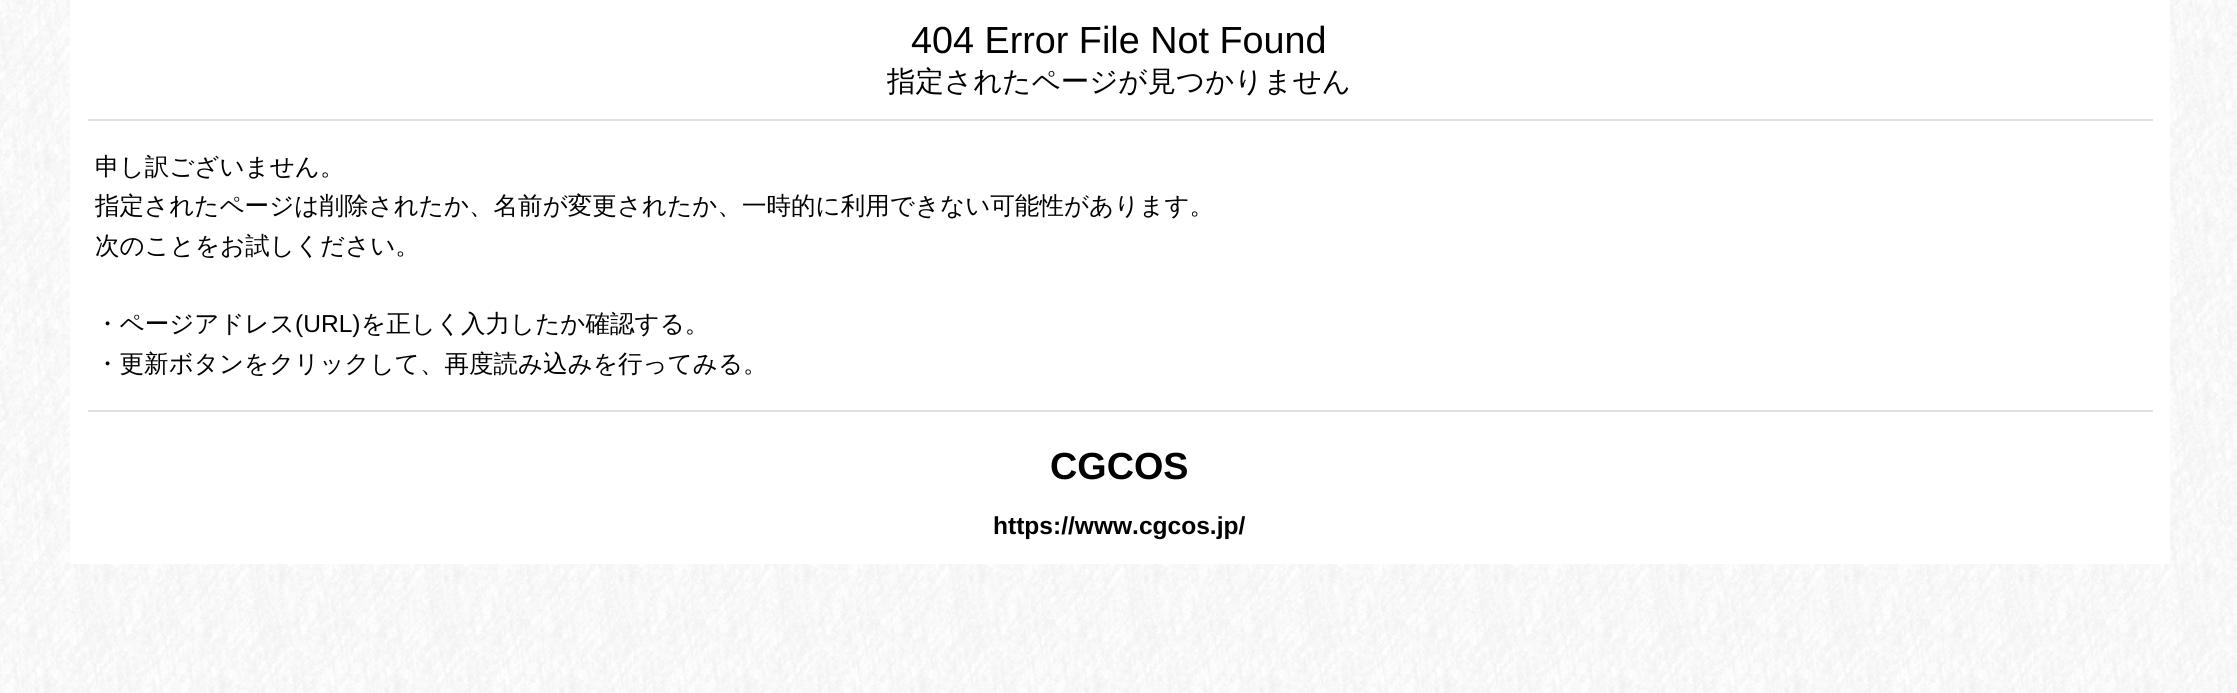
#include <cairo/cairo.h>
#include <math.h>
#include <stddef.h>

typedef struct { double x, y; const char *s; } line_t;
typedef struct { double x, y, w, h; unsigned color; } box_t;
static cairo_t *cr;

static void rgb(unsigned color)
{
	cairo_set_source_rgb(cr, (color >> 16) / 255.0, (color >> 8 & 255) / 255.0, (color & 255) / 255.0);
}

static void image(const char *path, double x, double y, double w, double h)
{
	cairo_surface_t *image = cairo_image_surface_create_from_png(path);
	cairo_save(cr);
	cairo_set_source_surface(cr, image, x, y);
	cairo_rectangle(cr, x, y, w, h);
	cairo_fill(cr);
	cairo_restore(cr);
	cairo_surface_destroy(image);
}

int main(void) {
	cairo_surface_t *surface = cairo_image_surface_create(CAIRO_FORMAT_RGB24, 2237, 693);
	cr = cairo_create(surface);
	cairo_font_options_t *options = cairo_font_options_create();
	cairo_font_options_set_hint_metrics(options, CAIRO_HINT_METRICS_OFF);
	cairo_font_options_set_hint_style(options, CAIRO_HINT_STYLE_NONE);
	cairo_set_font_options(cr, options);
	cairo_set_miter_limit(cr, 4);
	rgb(0xffffff);
	cairo_paint(cr);
	image("img/1.png", 0, 0, 2237, 693);
	{
		static const box_t items[] = {
			{70, 0, 2100, 564, 0xffffff},
			{88, 119, 2065, 2, 0xe0dfe3},
			{88, 410, 2065, 2, 0xe0dfe3},
		};
		for (size_t i = 0; i < sizeof items / sizeof *items; i++) {
			rgb(items[i].color);
			cairo_rectangle(cr, items[i].x, items[i].y, items[i].w, items[i].h);
			cairo_fill(cr);
		}
	}
	cairo_select_font_face(cr, "Liberation Sans", CAIRO_FONT_SLANT_NORMAL, CAIRO_FONT_WEIGHT_NORMAL);
	cairo_set_font_size(cr, 37.75);
	rgb(0x000000);
	cairo_move_to(cr, 911, 53);
	cairo_show_text(cr, "404 Error File Not Found");
	cairo_select_font_face(cr, "WenQuanYi Zen Hei Medium", CAIRO_FONT_SLANT_NORMAL, CAIRO_FONT_WEIGHT_NORMAL);
	cairo_set_font_size(cr, 28.5);
	cairo_move_to(cr, 887, 91);
	cairo_show_text(cr, "指定されたページが見つかりません");
	cairo_set_font_size(cr, 24.55);
	{
		static const line_t items[] = {
			{95, 175, "申し訳ございません。"},
			{95, 214, "指定されたページは削除されたか、名前が変更されたか、一時的に利用できない可能性があります。"},
			{95, 254, "次のことをお試しください。"},
			{95, 332, "・ページアドレス"},
		};
		for (size_t i = 0; i < sizeof items / sizeof *items; i++) {
			cairo_move_to(cr, items[i].x, items[i].y);
			cairo_show_text(cr, items[i].s);
		}
	}
	cairo_select_font_face(cr, "Liberation Sans", CAIRO_FONT_SLANT_NORMAL, CAIRO_FONT_WEIGHT_NORMAL);
	cairo_move_to(cr, 295, 332);
	cairo_show_text(cr, "(URL)");
	cairo_select_font_face(cr, "WenQuanYi Zen Hei Medium", CAIRO_FONT_SLANT_NORMAL, CAIRO_FONT_WEIGHT_NORMAL);
	cairo_move_to(cr, 361, 332);
	cairo_show_text(cr, "を正しく入力したか確認する。");
	cairo_move_to(cr, 95, 372);
	cairo_show_text(cr, "・更新ボタンをクリックして、再度読み込みを行ってみる。");
	cairo_select_font_face(cr, "Liberation Sans", CAIRO_FONT_SLANT_NORMAL, CAIRO_FONT_WEIGHT_BOLD);
	cairo_set_font_size(cr, 37.75);
	cairo_move_to(cr, 1050, 479);
	cairo_show_text(cr, "CGCOS");
	cairo_set_font_size(cr, 24.55);
	cairo_move_to(cr, 993, 534);
	cairo_show_text(cr, "https://www.cgcos.jp/");
	cairo_surface_write_to_png(surface, "page.png");
	cairo_font_options_destroy(options);
	cairo_destroy(cr);
	cairo_surface_destroy(surface);
	return 0;
}
